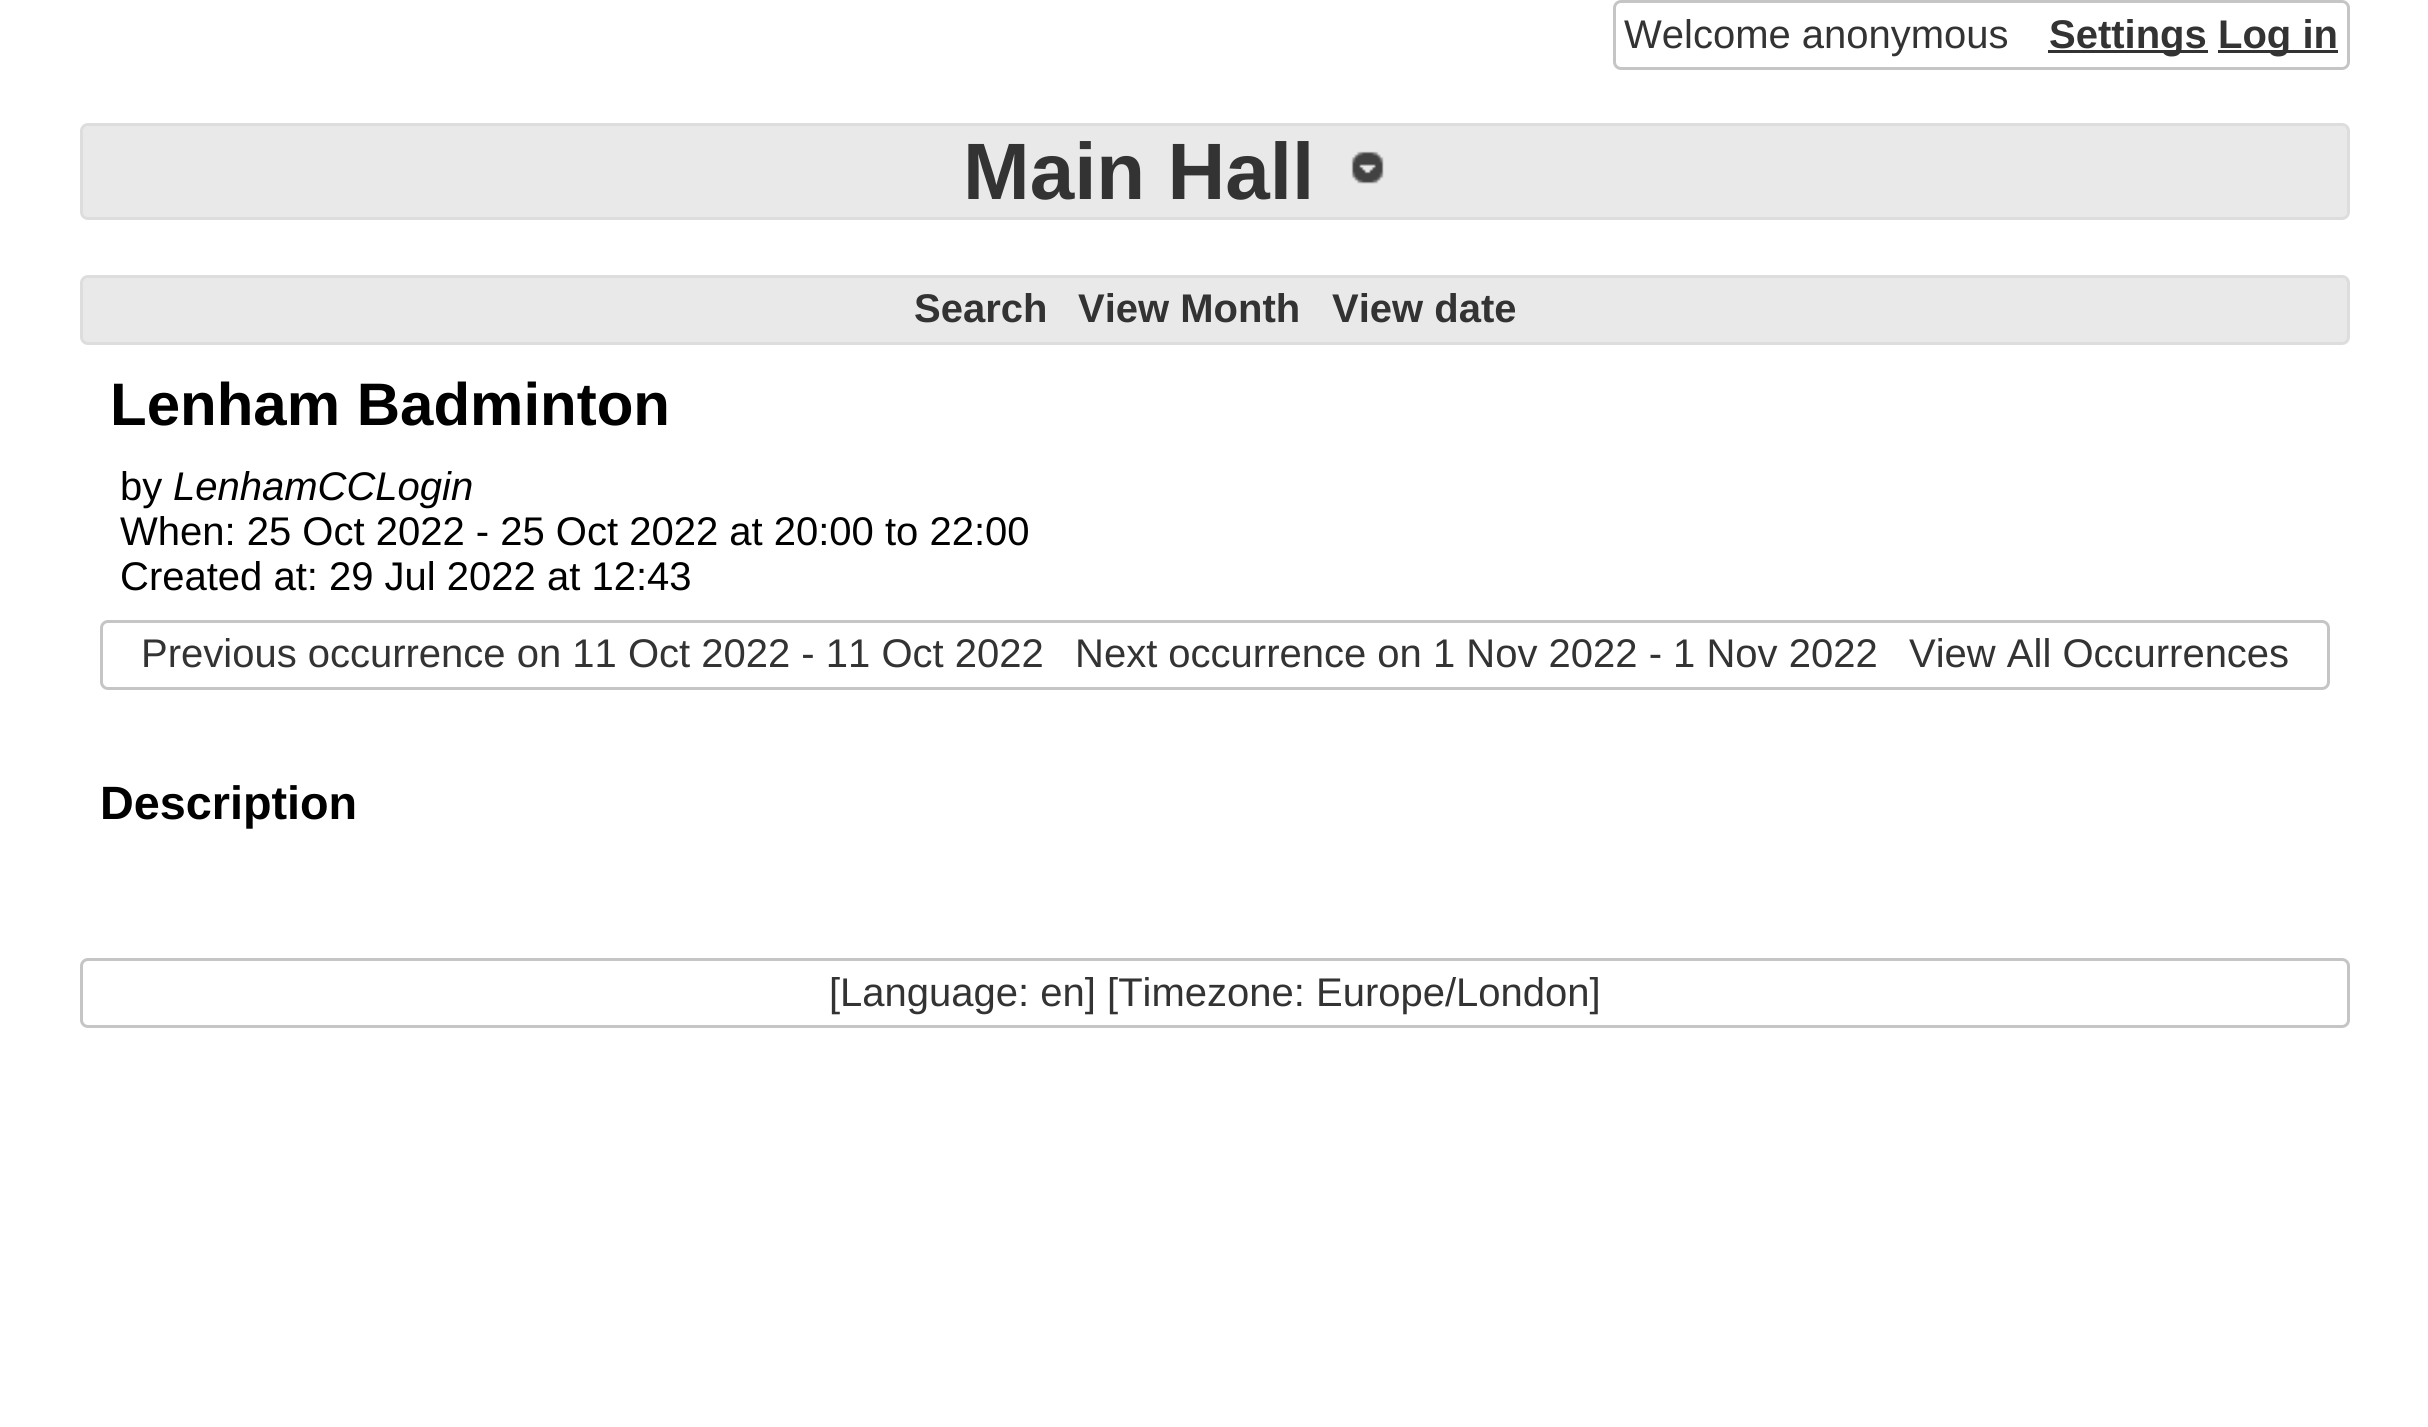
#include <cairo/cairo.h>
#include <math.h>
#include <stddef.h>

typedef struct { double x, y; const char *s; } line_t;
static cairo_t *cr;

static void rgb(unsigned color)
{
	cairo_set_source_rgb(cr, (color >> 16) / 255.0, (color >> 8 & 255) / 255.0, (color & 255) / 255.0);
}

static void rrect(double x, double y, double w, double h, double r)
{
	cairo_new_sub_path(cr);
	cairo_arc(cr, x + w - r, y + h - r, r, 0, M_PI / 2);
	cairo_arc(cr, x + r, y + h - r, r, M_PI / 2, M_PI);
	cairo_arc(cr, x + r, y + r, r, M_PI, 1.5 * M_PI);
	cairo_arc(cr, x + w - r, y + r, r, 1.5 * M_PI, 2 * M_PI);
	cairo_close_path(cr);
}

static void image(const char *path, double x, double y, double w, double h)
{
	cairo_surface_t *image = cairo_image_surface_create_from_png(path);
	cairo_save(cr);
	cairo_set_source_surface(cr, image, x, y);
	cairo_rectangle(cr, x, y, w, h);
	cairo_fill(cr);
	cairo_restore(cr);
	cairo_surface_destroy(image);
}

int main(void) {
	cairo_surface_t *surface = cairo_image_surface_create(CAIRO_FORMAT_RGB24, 2428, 1427);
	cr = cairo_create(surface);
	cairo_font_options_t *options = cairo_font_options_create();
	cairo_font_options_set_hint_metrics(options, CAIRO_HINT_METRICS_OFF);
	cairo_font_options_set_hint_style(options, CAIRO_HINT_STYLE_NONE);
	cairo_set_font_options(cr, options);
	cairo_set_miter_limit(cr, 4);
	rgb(0xffffff);
	cairo_paint(cr);
	rrect(1614.5, 1.5, 734, 67, 6.5);
	rgb(0xc5c5c5);
	cairo_set_line_width(cr, 3);
	cairo_stroke(cr);
	rgb(0x333333);
	cairo_rectangle(cr, 2048, 50, 160, 3);
	cairo_fill(cr);
	cairo_rectangle(cr, 2218, 50, 120, 3);
	cairo_fill(cr);
	rgb(0xe9e9e9);
	rrect(81.5, 124.5, 2267, 94, 6.5);
	cairo_fill_preserve(cr);
	rgb(0xdddddd);
	cairo_stroke(cr);
	image("img/1.png", 1351, 151, 33, 33);
	rgb(0xe9e9e9);
	rrect(81.5, 276.5, 2267, 67, 6.5);
	cairo_fill_preserve(cr);
	rgb(0xdddddd);
	cairo_stroke(cr);
	rrect(101.5, 621.5, 2227, 67, 6.5);
	rgb(0xc5c5c5);
	cairo_stroke(cr);
	rrect(81.5, 959.5, 2267, 67, 6.5);
	cairo_stroke(cr);
	cairo_select_font_face(cr, "Liberation Sans", CAIRO_FONT_SLANT_NORMAL, CAIRO_FONT_WEIGHT_NORMAL);
	cairo_set_font_size(cr, 40);
	rgb(0x333333);
	cairo_move_to(cr, 1624, 48);
	cairo_show_text(cr, "Welcome anonymous");
	cairo_select_font_face(cr, "Liberation Sans", CAIRO_FONT_SLANT_NORMAL, CAIRO_FONT_WEIGHT_BOLD);
	cairo_move_to(cr, 2049, 48);
	cairo_show_text(cr, "Settings");
	cairo_move_to(cr, 2218, 48);
	cairo_show_text(cr, "Log in");
	cairo_set_font_size(cr, 80);
	cairo_move_to(cr, 963, 199);
	cairo_show_text(cr, "Main Hall");
	cairo_set_font_size(cr, 40);
	{
		static const line_t items[] = {
			{914, 322, "Search"},
			{1078, 322, "View Month"},
			{1332, 322, "View date"},
		};
		for (size_t i = 0; i < sizeof items / sizeof *items; i++) {
			cairo_move_to(cr, items[i].x, items[i].y);
			cairo_show_text(cr, items[i].s);
		}
	}
	cairo_set_font_size(cr, 60);
	rgb(0x000000);
	cairo_move_to(cr, 110, 425);
	cairo_show_text(cr, "Lenham Badminton");
	cairo_select_font_face(cr, "Liberation Sans", CAIRO_FONT_SLANT_NORMAL, CAIRO_FONT_WEIGHT_NORMAL);
	cairo_set_font_size(cr, 40);
	cairo_move_to(cr, 120, 500);
	cairo_show_text(cr, "by");
	cairo_select_font_face(cr, "Liberation Sans", CAIRO_FONT_SLANT_ITALIC, CAIRO_FONT_WEIGHT_NORMAL);
	cairo_move_to(cr, 173, 500);
	cairo_show_text(cr, "LenhamCCLogin");
	cairo_select_font_face(cr, "Liberation Sans", CAIRO_FONT_SLANT_NORMAL, CAIRO_FONT_WEIGHT_NORMAL);
	cairo_move_to(cr, 120, 545);
	cairo_show_text(cr, "When: 25 Oct 2022 - 25 Oct 2022 at 20:00 to 22:00");
	cairo_move_to(cr, 120, 590);
	cairo_show_text(cr, "Created at: 29 Jul 2022 at 12:43");
	rgb(0x333333);
	{
		static const line_t items[] = {
			{141, 667, "Previous occurrence on 11 Oct 2022 - 11 Oct 2022"},
			{1075, 667, "Next occurrence on 1 Nov 2022 - 1 Nov 2022"},
			{1909, 667, "View All Occurrences"},
		};
		for (size_t i = 0; i < sizeof items / sizeof *items; i++) {
			cairo_move_to(cr, items[i].x, items[i].y);
			cairo_show_text(cr, items[i].s);
		}
	}
	cairo_select_font_face(cr, "Liberation Sans", CAIRO_FONT_SLANT_NORMAL, CAIRO_FONT_WEIGHT_BOLD);
	cairo_set_font_size(cr, 46.75);
	rgb(0x000000);
	cairo_move_to(cr, 100, 819);
	cairo_show_text(cr, "Description");
	cairo_select_font_face(cr, "Liberation Sans", CAIRO_FONT_SLANT_NORMAL, CAIRO_FONT_WEIGHT_NORMAL);
	cairo_set_font_size(cr, 40);
	rgb(0x333333);
	cairo_move_to(cr, 829, 1006);
	cairo_show_text(cr, "[Language: en] [Timezone: Europe/London]");
	cairo_surface_write_to_png(surface, "page.png");
	cairo_font_options_destroy(options);
	cairo_destroy(cr);
	cairo_surface_destroy(surface);
	return 0;
}
